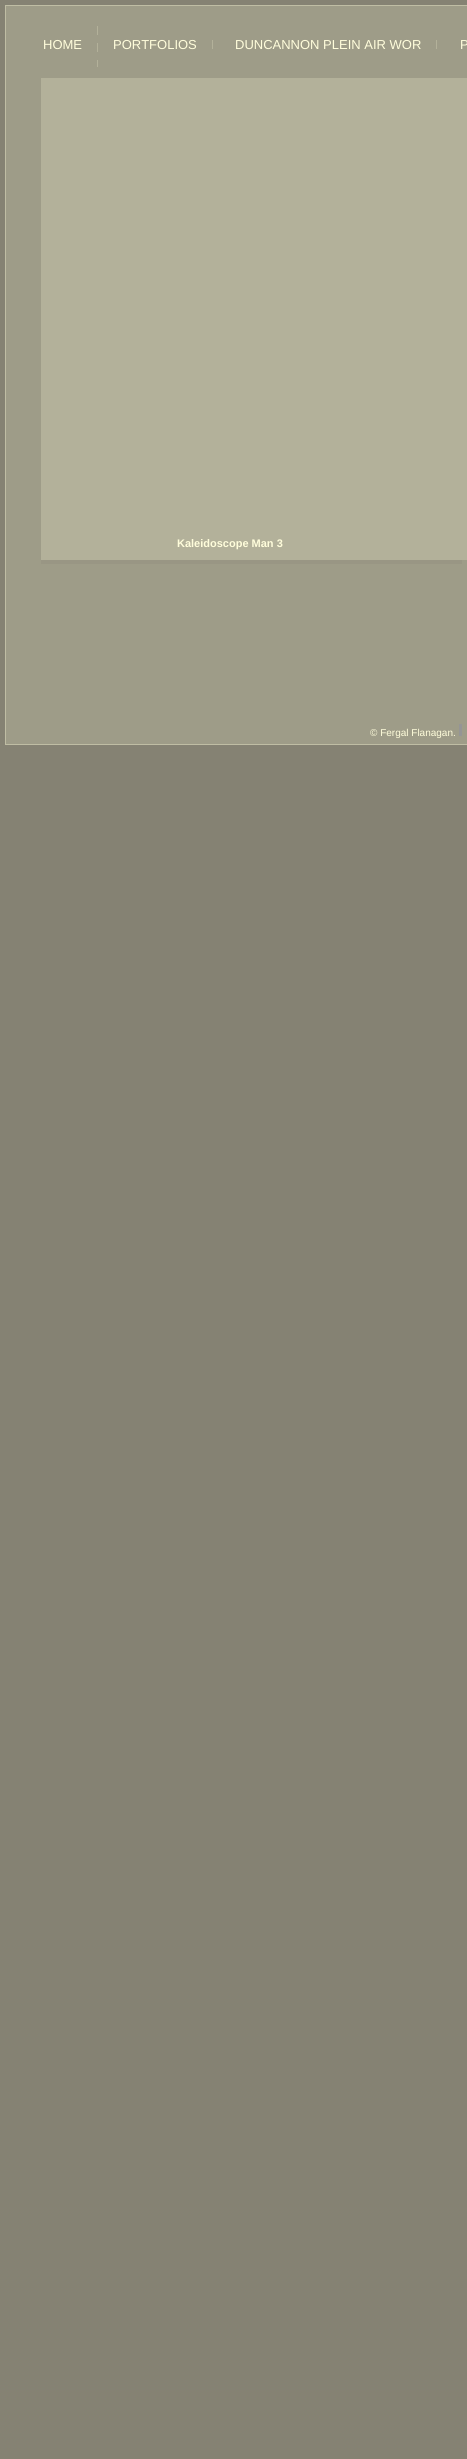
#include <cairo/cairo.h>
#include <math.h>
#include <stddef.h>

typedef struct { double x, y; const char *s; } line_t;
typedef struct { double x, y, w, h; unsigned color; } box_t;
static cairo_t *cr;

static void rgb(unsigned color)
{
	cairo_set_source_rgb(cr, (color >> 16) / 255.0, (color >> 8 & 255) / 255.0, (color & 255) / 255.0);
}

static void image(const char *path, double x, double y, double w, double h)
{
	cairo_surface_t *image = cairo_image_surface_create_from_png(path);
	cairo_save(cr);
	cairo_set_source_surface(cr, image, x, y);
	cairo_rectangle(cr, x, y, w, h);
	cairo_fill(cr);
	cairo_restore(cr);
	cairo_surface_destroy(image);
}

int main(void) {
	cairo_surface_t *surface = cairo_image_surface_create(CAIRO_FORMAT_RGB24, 467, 2459);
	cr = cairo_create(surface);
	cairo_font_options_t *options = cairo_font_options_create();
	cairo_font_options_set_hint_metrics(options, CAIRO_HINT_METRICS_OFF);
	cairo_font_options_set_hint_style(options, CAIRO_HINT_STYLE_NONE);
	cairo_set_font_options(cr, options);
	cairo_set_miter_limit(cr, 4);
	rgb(0x858273);
	cairo_paint(cr);
	rgb(0xbfbda4);
	cairo_rectangle(cr, 5, 5, 462, 740);
	cairo_fill(cr);
	rgb(0x9e9c88);
	cairo_rectangle(cr, 6, 6, 461, 738);
	cairo_fill(cr);
	image("img/1.png", 97, 26, 1, 41);
	{
		static const box_t items[] = {
			{212, 40, 1, 9, 0xb3b19a},
			{436, 40, 1, 9, 0xb3b19a},
			{41, 78, 426, 482, 0xb3b19a},
			{41, 560, 421, 4, 0x999684},
			{459, 724, 3, 12, 0x959595},
		};
		for (size_t i = 0; i < sizeof items / sizeof *items; i++) {
			rgb(items[i].color);
			cairo_rectangle(cr, items[i].x, items[i].y, items[i].w, items[i].h);
			cairo_fill(cr);
		}
	}
	cairo_select_font_face(cr, "Liberation Sans", CAIRO_FONT_SLANT_NORMAL, CAIRO_FONT_WEIGHT_NORMAL);
	cairo_set_font_size(cr, 13);
	rgb(0xfffddb);
	{
		static const line_t items[] = {
			{43, 49, "HOME"},
			{113, 49, "PORTFOLIOS"},
			{235, 49, "DUNCANNON PLEIN AIR WOR"},
			{460, 49, "P"},
		};
		for (size_t i = 0; i < sizeof items / sizeof *items; i++) {
			cairo_move_to(cr, items[i].x, items[i].y);
			cairo_show_text(cr, items[i].s);
		}
	}
	cairo_select_font_face(cr, "Liberation Sans", CAIRO_FONT_SLANT_NORMAL, CAIRO_FONT_WEIGHT_BOLD);
	cairo_set_font_size(cr, 11);
	cairo_move_to(cr, 177, 547);
	cairo_show_text(cr, "Kaleidoscope Man 3");
	cairo_select_font_face(cr, "Liberation Sans", CAIRO_FONT_SLANT_NORMAL, CAIRO_FONT_WEIGHT_NORMAL);
	cairo_set_font_size(cr, 10);
	cairo_move_to(cr, 370, 736);
	cairo_show_text(cr, "© Fergal Flanagan.");
	cairo_surface_write_to_png(surface, "page.png");
	cairo_font_options_destroy(options);
	cairo_destroy(cr);
	cairo_surface_destroy(surface);
	return 0;
}
